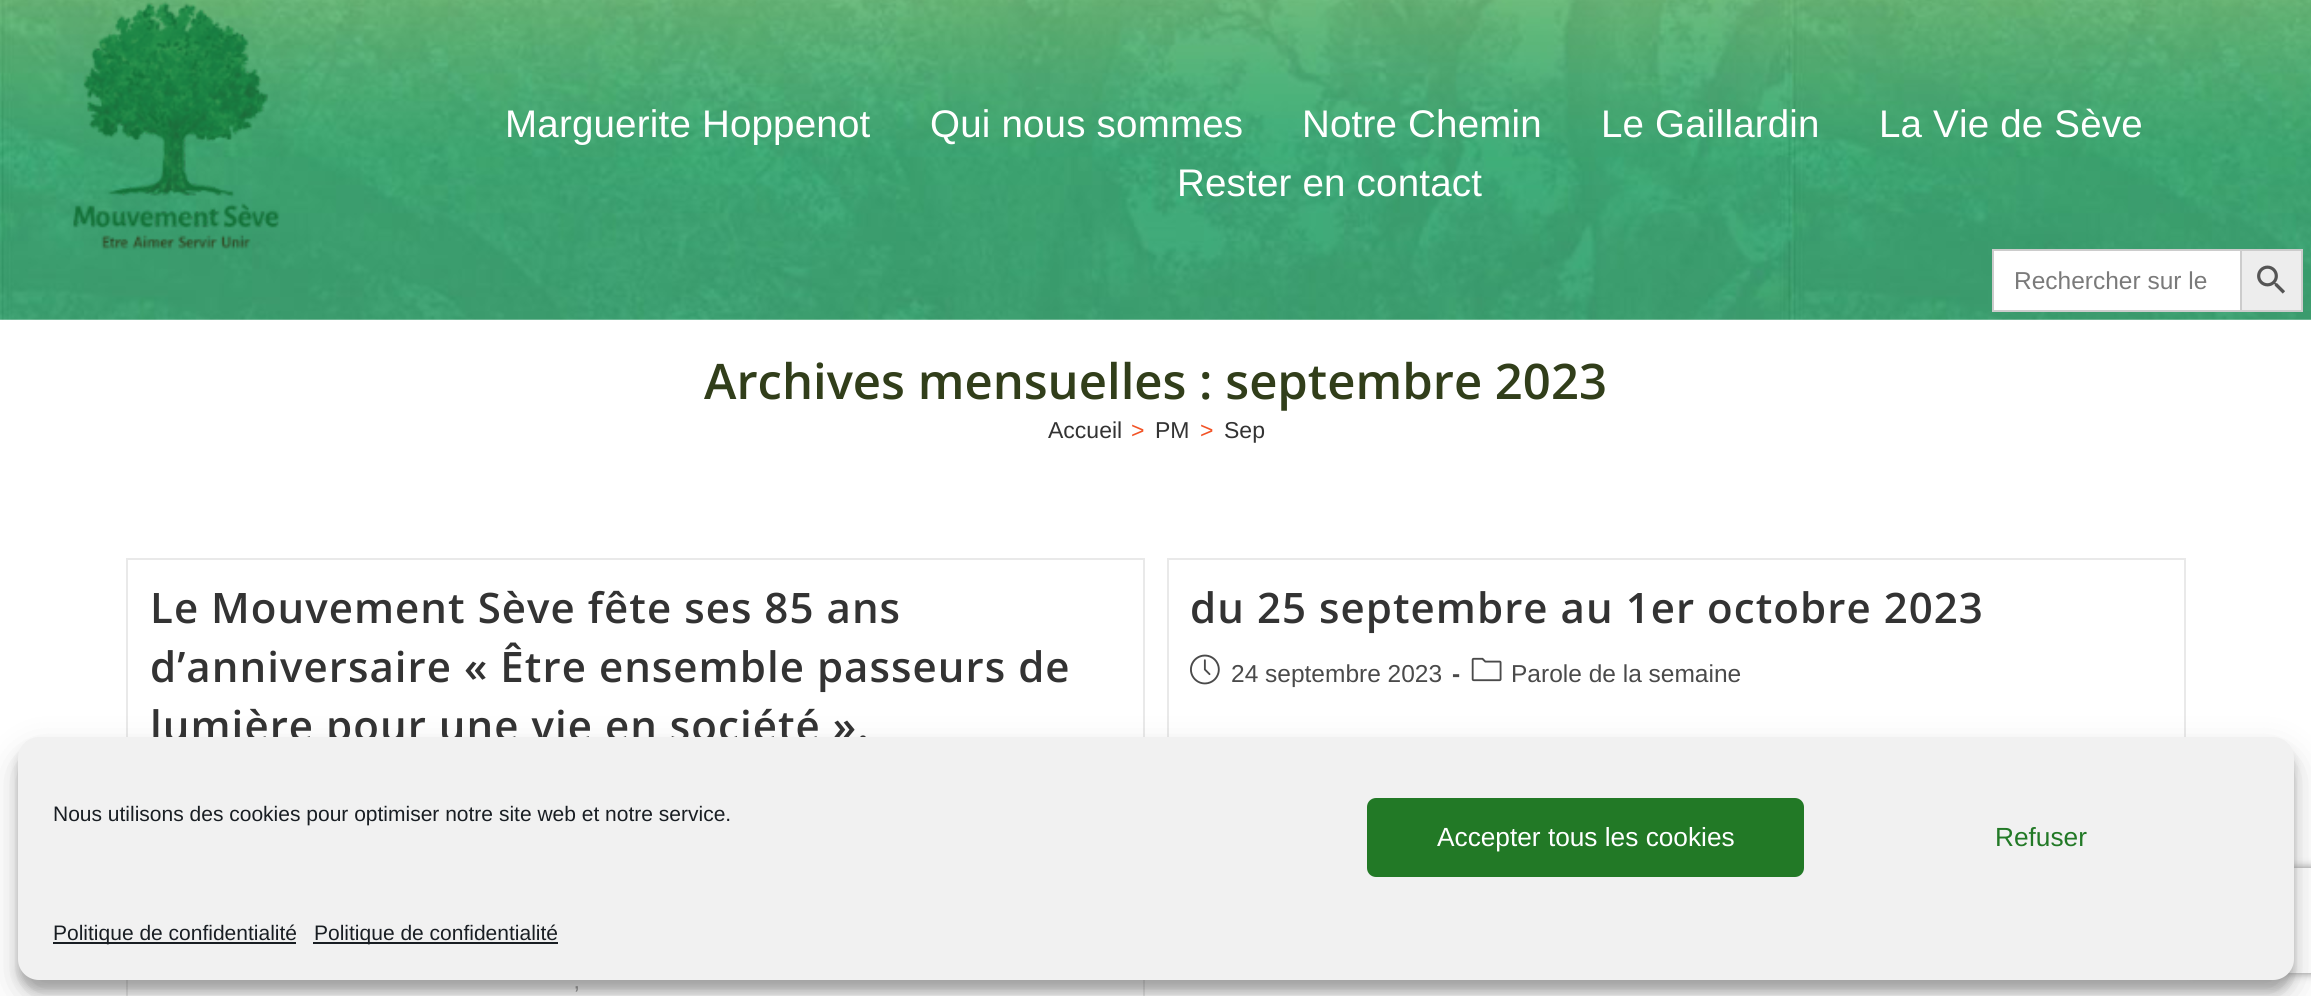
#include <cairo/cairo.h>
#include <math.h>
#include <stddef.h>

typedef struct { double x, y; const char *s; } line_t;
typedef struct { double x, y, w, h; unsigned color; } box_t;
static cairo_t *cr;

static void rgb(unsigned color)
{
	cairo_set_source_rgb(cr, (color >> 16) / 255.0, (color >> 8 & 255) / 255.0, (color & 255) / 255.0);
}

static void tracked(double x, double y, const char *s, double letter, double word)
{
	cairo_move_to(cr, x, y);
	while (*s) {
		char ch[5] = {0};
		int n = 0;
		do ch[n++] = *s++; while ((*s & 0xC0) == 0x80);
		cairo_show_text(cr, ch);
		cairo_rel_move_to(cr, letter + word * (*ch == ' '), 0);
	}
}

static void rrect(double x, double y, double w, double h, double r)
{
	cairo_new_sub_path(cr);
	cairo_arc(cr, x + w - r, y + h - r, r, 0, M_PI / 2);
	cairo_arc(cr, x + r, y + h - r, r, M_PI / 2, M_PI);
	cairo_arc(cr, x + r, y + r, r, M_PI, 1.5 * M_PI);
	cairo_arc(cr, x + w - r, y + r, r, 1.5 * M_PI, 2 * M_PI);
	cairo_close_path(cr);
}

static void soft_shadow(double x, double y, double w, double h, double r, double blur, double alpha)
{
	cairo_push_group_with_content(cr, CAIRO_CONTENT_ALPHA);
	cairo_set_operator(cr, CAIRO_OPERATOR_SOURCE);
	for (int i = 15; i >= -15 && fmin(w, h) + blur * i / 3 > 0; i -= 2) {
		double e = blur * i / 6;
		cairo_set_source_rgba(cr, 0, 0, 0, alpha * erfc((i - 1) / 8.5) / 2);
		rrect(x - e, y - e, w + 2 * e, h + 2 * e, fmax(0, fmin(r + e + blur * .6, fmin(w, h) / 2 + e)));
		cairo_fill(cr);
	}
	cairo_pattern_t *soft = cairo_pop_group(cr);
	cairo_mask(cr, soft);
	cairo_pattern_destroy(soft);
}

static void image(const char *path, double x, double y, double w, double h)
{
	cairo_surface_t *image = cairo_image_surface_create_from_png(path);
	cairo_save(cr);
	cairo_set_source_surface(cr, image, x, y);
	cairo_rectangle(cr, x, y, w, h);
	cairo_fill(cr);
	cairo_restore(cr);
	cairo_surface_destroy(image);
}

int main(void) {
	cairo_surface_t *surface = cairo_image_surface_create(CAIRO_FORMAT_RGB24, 2311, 996);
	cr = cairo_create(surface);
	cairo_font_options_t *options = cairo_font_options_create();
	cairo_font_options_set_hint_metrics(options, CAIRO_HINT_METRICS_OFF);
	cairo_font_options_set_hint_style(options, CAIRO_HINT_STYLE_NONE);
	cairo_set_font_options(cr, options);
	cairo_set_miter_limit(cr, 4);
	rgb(0xffffff);
	cairo_paint(cr);
	image("img/1.png", 0, 0, 2311, 320);
	image("img/2.png", 73, 1, 207, 249);
	{
		static const box_t items[] = {
			{1994, 251, 246, 59, 0xffffff},
			{1992, 249, 248, 2, 0xcccccc},
			{1992, 310, 248, 2, 0xcccccc},
			{1992, 249, 2, 63, 0xcccccc},
		};
		for (size_t i = 0; i < sizeof items / sizeof *items; i++) {
			rgb(items[i].color);
			cairo_rectangle(cr, items[i].x, items[i].y, items[i].w, items[i].h);
			cairo_fill(cr);
		}
	}
	rgb(0xededed);
	cairo_rectangle(cr, 2241, 250, 61, 61);
	cairo_fill_preserve(cr);
	rgb(0xcccccc);
	cairo_stroke(cr);
	image("img/3.png", 2257, 265, 28, 29);
	cairo_rectangle(cr, 127, 559, 1017, 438);
	rgb(0xe9e9e9);
	cairo_stroke(cr);
	cairo_rectangle(cr, 1168, 559, 1017, 404);
	cairo_stroke(cr);
	image("img/4.png", 1190, 654, 30, 31);
	image("img/5.png", 1471, 657, 31, 25);
	rgb(0x000000);
	soft_shadow(18, 747, 2276, 244, 21, 5, 0.23);
	soft_shadow(18, 754, 2276, 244, 21, 17.5, 0.19);
	cairo_save(cr);
	cairo_set_fill_rule(cr, CAIRO_FILL_RULE_EVEN_ODD);
	cairo_new_path(cr);
	cairo_move_to(cr, 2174, 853);
	cairo_line_to(cr, 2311, 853);
	cairo_line_to(cr, 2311, 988);
	cairo_line_to(cr, 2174, 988);
	cairo_close_path(cr);
	cairo_move_to(cr, 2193, 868);
	cairo_line_to(cr, 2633, 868);
	cairo_curve_to(cr, 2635, 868, 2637, 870, 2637, 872);
	cairo_line_to(cr, 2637, 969);
	cairo_curve_to(cr, 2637, 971, 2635, 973, 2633, 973);
	cairo_line_to(cr, 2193, 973);
	cairo_curve_to(cr, 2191, 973, 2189, 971, 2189, 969);
	cairo_line_to(cr, 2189, 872);
	cairo_curve_to(cr, 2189, 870, 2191, 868, 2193, 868);
	cairo_close_path(cr);
	cairo_clip(cr);
	rgb(0x808080);
	soft_shadow(2189, 868, 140, 105, 4, 4.5, 1);
	cairo_restore(cr);
	cairo_select_font_face(cr, "Liberation Sans", CAIRO_FONT_SLANT_NORMAL, CAIRO_FONT_WEIGHT_NORMAL);
	cairo_set_font_size(cr, 38.5);
	rgb(0xffffff);
	{
		static const line_t items[] = {
			{505, 137, "Marguerite Hoppenot"},
			{930, 137, "Qui nous sommes"},
			{1302, 137, "Notre Chemin"},
			{1601, 137, "Le Gaillardin"},
			{1879, 137, "La Vie de Sève"},
			{1177, 196, "Rester en contact"},
		};
		for (size_t i = 0; i < sizeof items / sizeof *items; i++) {
			tracked(items[i].x, items[i].y, items[i].s, 0.2, 0);
		}
	}
	cairo_set_font_size(cr, 24.5);
	rgb(0x7a7a7a);
	cairo_move_to(cr, 2014, 289);
	cairo_show_text(cr, "Rechercher sur le");
	cairo_select_font_face(cr, "Open Sans SemiBold", CAIRO_FONT_SLANT_NORMAL, CAIRO_FONT_WEIGHT_NORMAL);
	cairo_set_font_size(cr, 49);
	rgb(0x313e1a);
	cairo_move_to(cr, 704, 399);
	cairo_show_text(cr, "Archives mensuelles : septembre 2023");
	cairo_select_font_face(cr, "Liberation Sans", CAIRO_FONT_SLANT_NORMAL, CAIRO_FONT_WEIGHT_NORMAL);
	cairo_set_font_size(cr, 23);
	rgb(0x333333);
	cairo_move_to(cr, 1048, 438);
	cairo_show_text(cr, "Accueil");
	rgb(0xf25326);
	cairo_move_to(cr, 1131, 438);
	cairo_show_text(cr, ">");
	rgb(0x333333);
	cairo_move_to(cr, 1155, 438);
	cairo_show_text(cr, "PM");
	rgb(0xf25326);
	cairo_move_to(cr, 1200, 438);
	cairo_show_text(cr, ">");
	rgb(0x333333);
	cairo_move_to(cr, 1224, 438);
	cairo_show_text(cr, "Sep");
	cairo_select_font_face(cr, "Open Sans SemiBold", CAIRO_FONT_SLANT_NORMAL, CAIRO_FONT_WEIGHT_NORMAL);
	cairo_set_font_size(cr, 42);
	{
		static const line_t items[] = {
			{150, 623, "Le Mouvement Sève fête ses 85 ans"},
			{150, 682, "d’anniversaire « Être ensemble passeurs de"},
			{150, 741, "lumière pour une vie en société »."},
		};
		for (size_t i = 0; i < sizeof items / sizeof *items; i++) {
			tracked(items[i].x, items[i].y, items[i].s, 1.05, 0);
		}
	}
	cairo_select_font_face(cr, "Liberation Sans", CAIRO_FONT_SLANT_NORMAL, CAIRO_FONT_WEIGHT_NORMAL);
	cairo_set_font_size(cr, 24.5);
	rgb(0x7a7a7a);
	cairo_move_to(cr, 574, 1003);
	cairo_show_text(cr, "’");
	cairo_select_font_face(cr, "Open Sans SemiBold", CAIRO_FONT_SLANT_NORMAL, CAIRO_FONT_WEIGHT_NORMAL);
	cairo_set_font_size(cr, 42);
	rgb(0x333333);
	tracked(1190, 623, "du 25 septembre au 1er octobre 2023", 1.05, 0);
	cairo_select_font_face(cr, "Liberation Sans", CAIRO_FONT_SLANT_NORMAL, CAIRO_FONT_WEIGHT_NORMAL);
	cairo_set_font_size(cr, 24.5);
	rgb(0x4a4a4a);
	cairo_move_to(cr, 1231, 682);
	cairo_show_text(cr, "24 septembre 2023");
	cairo_select_font_face(cr, "Liberation Sans", CAIRO_FONT_SLANT_NORMAL, CAIRO_FONT_WEIGHT_BOLD);
	cairo_move_to(cr, 1452, 682);
	cairo_show_text(cr, "-");
	cairo_select_font_face(cr, "Liberation Sans", CAIRO_FONT_SLANT_NORMAL, CAIRO_FONT_WEIGHT_NORMAL);
	cairo_move_to(cr, 1511, 682);
	cairo_show_text(cr, "Parole de la semaine");
	rgb(0xf1f1f1);
	rrect(18, 737, 2276, 243, 21);
	cairo_fill(cr);
	cairo_set_font_size(cr, 21);
	rgb(0x191e23);
	cairo_move_to(cr, 53, 821);
	cairo_show_text(cr, "Nous utilisons des cookies pour optimiser notre site web et notre service.");
	rgb(0x227926);
	rrect(1368, 799, 435, 77, 8);
	cairo_fill_preserve(cr);
	cairo_stroke(cr);
	cairo_set_font_size(cr, 26.25);
	rgb(0xffffff);
	cairo_move_to(cr, 1437, 846);
	cairo_show_text(cr, "Accepter tous les cookies");
	rgb(0x227926);
	cairo_move_to(cr, 1995, 846);
	cairo_show_text(cr, "Refuser");
	rgb(0x191e23);
	cairo_rectangle(cr, 53, 942, 243, 2);
	cairo_fill(cr);
	cairo_set_font_size(cr, 21);
	cairo_move_to(cr, 53, 940);
	cairo_show_text(cr, "Politique de confidentialité");
	cairo_rectangle(cr, 313, 942, 245, 2);
	cairo_fill(cr);
	cairo_move_to(cr, 314, 940);
	cairo_show_text(cr, "Politique de confidentialité");
	cairo_surface_write_to_png(surface, "page.png");
	cairo_font_options_destroy(options);
	cairo_destroy(cr);
	cairo_surface_destroy(surface);
	return 0;
}
